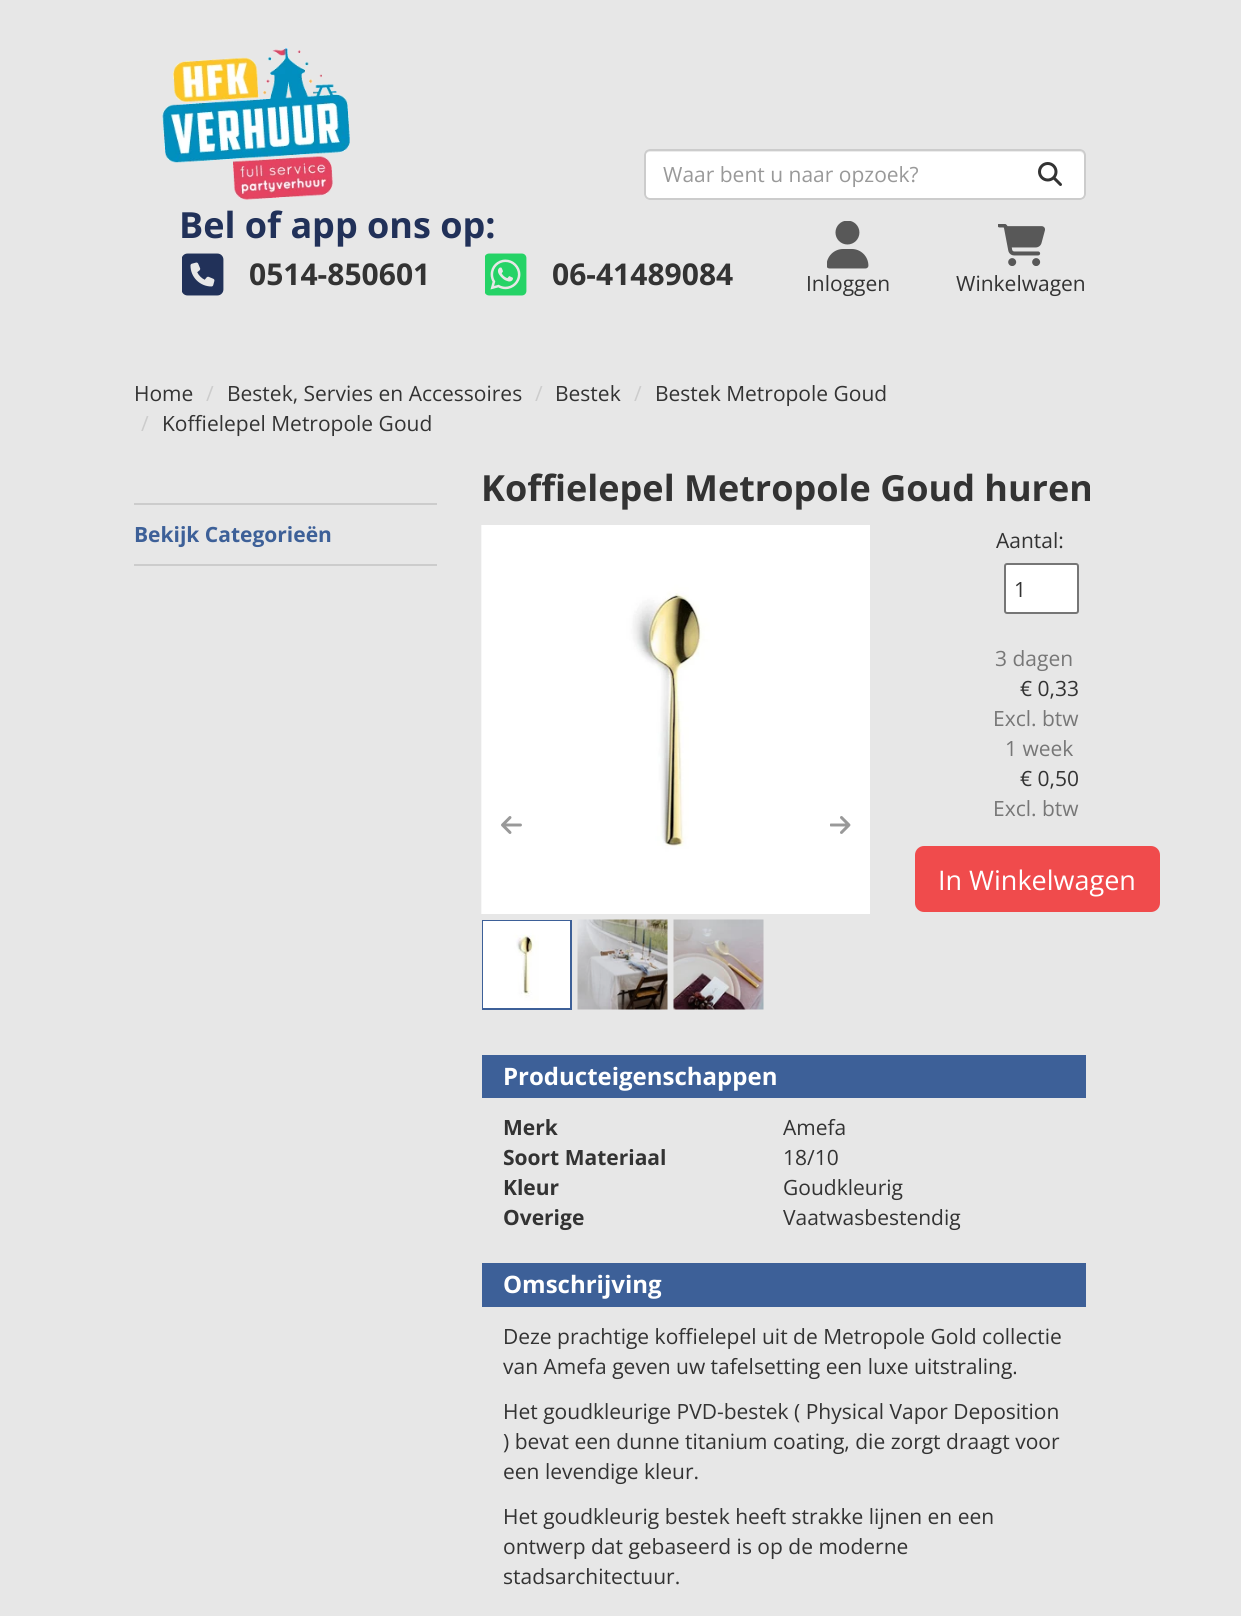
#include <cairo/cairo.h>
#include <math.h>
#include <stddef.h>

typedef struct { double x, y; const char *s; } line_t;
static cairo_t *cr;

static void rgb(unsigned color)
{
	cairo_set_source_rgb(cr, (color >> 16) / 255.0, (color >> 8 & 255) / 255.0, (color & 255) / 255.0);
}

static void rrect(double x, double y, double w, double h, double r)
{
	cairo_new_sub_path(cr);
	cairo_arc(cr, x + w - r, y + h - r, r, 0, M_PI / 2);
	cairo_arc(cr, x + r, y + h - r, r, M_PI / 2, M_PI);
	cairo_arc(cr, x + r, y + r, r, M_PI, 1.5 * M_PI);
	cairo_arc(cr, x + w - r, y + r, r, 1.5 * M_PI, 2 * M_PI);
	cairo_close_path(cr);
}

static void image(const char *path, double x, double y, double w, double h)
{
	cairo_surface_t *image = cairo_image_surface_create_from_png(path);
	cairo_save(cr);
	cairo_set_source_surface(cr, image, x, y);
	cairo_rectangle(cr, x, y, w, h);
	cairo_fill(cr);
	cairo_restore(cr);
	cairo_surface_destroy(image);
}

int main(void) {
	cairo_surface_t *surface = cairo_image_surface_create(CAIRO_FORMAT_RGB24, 1241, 1616);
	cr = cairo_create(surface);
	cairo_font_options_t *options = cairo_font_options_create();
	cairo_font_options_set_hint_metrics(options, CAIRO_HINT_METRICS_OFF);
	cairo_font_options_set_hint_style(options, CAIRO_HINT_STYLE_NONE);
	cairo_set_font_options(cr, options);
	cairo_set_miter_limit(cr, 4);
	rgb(0xe7e7e7);
	cairo_paint(cr);
	image("img/1.png", 162, 48, 188, 152);
	rgb(0xffffff);
	rrect(644, 149, 442, 51, 6);
	cairo_fill(cr);
	rgb(0xececec);
	cairo_new_path(cr);
	cairo_move_to(cr, 650, 152);
	cairo_line_to(cr, 1080, 152);
	cairo_curve_to(cr, 1082, 152, 1084, 154, 1084, 156);
	cairo_line_to(cr, 1084, 196);
	cairo_curve_to(cr, 1085, 195, 1085, 194, 1085, 193);
	cairo_line_to(cr, 1085, 155);
	cairo_curve_to(cr, 1085, 152, 1083, 150, 1080, 150);
	cairo_line_to(cr, 650, 150);
	cairo_curve_to(cr, 647, 150, 645, 152, 645, 155);
	cairo_line_to(cr, 645, 156);
	cairo_curve_to(cr, 645, 154, 647, 152, 650, 152);
	cairo_close_path(cr);
	cairo_fill(cr);
	rrect(645, 150, 440, 49, 5);
	rgb(0xcccccc);
	cairo_stroke(cr);
	image("img/2.png", 1038, 162, 24, 24);
	image("img/3.png", 182, 253, 42, 43);
	image("img/4.png", 485, 253, 42, 43);
	image("img/5.png", 827, 221, 42, 48);
	image("img/6.png", 998, 224, 47, 42);
	cairo_rectangle(cr, 134, 503, 303, 2);
	cairo_fill(cr);
	cairo_rectangle(cr, 134, 564, 303, 2);
	cairo_fill(cr);
	image("img/7.png", 481, 525, 389, 389);
	image("img/8.png", 501, 816, 21, 18);
	image("img/9.png", 830, 816, 21, 18);
	cairo_rectangle(cr, 483, 921, 88, 88);
	rgb(0x3d6098);
	cairo_stroke(cr);
	image("img/10.png", 483, 921, 87, 87);
	image("img/11.png", 577, 919, 91, 91);
	image("img/12.png", 673, 919, 91, 91);
	rgb(0xffffff);
	rrect(1005, 564, 73, 49, 2);
	cairo_fill_preserve(cr);
	rgb(0x767676);
	cairo_stroke(cr);
	rgb(0xf04b4c);
	rrect(915, 846, 245, 66, 9);
	cairo_fill(cr);
	rgb(0x3d6098);
	cairo_rectangle(cr, 482, 1055, 604, 43);
	cairo_fill(cr);
	cairo_rectangle(cr, 482, 1263, 604, 44);
	cairo_fill(cr);
	cairo_select_font_face(cr, "Open Sans", CAIRO_FONT_SLANT_NORMAL, CAIRO_FONT_WEIGHT_NORMAL);
	cairo_set_font_size(cr, 21);
	rgb(0x999999);
	cairo_move_to(cr, 663, 182);
	cairo_show_text(cr, "Waar bent u naar opzoek?");
	cairo_select_font_face(cr, "Open Sans", CAIRO_FONT_SLANT_NORMAL, CAIRO_FONT_WEIGHT_BOLD);
	cairo_set_font_size(cr, 36);
	rgb(0x213159);
	cairo_move_to(cr, 179, 238);
	cairo_show_text(cr, "Bel of app ons op:");
	cairo_set_font_size(cr, 30);
	rgb(0x333333);
	cairo_move_to(cr, 249, 285);
	cairo_show_text(cr, "0514-850601");
	cairo_move_to(cr, 552, 285);
	cairo_show_text(cr, "06-41489084");
	cairo_select_font_face(cr, "Open Sans", CAIRO_FONT_SLANT_NORMAL, CAIRO_FONT_WEIGHT_NORMAL);
	cairo_set_font_size(cr, 21);
	{
		static const line_t items[] = {
			{806, 291, "Inloggen"},
			{956, 291, "Winkelwagen"},
			{134, 401, "Home"},
		};
		for (size_t i = 0; i < sizeof items / sizeof *items; i++) {
			cairo_move_to(cr, items[i].x, items[i].y);
			cairo_show_text(cr, items[i].s);
		}
	}
	rgb(0xcccccc);
	cairo_move_to(cr, 206, 401);
	cairo_show_text(cr, "/");
	rgb(0x333333);
	cairo_move_to(cr, 227, 401);
	cairo_show_text(cr, "Bestek, Servies en Accessoires");
	rgb(0xcccccc);
	cairo_move_to(cr, 535, 401);
	cairo_show_text(cr, "/");
	rgb(0x333333);
	cairo_move_to(cr, 555, 401);
	cairo_show_text(cr, "Bestek");
	rgb(0xcccccc);
	cairo_move_to(cr, 634, 401);
	cairo_show_text(cr, "/");
	rgb(0x333333);
	cairo_move_to(cr, 655, 401);
	cairo_show_text(cr, "Bestek Metropole Goud");
	rgb(0xcccccc);
	cairo_move_to(cr, 141, 431);
	cairo_show_text(cr, "/");
	rgb(0x333333);
	cairo_move_to(cr, 162, 431);
	cairo_show_text(cr, "Koffielepel Metropole Goud");
	cairo_select_font_face(cr, "Open Sans", CAIRO_FONT_SLANT_NORMAL, CAIRO_FONT_WEIGHT_BOLD);
	rgb(0x3d6098);
	cairo_move_to(cr, 134, 542);
	cairo_show_text(cr, "Bekijk Categorieën");
	cairo_set_font_size(cr, 36);
	rgb(0x333333);
	cairo_move_to(cr, 481, 501);
	cairo_show_text(cr, "Koffielepel Metropole Goud huren");
	cairo_select_font_face(cr, "Open Sans", CAIRO_FONT_SLANT_NORMAL, CAIRO_FONT_WEIGHT_NORMAL);
	cairo_set_font_size(cr, 21);
	cairo_move_to(cr, 996, 548);
	cairo_show_text(cr, "Aantal:");
	cairo_move_to(cr, 1014, 597);
	cairo_show_text(cr, "1");
	rgb(0x777777);
	cairo_move_to(cr, 995, 666);
	cairo_show_text(cr, "3 dagen");
	rgb(0x333333);
	cairo_move_to(cr, 1020, 696);
	cairo_show_text(cr, "€ 0,33");
	rgb(0x777777);
	cairo_move_to(cr, 993, 726);
	cairo_show_text(cr, "Excl. btw");
	cairo_move_to(cr, 1005, 756);
	cairo_show_text(cr, "1 week");
	rgb(0x333333);
	cairo_move_to(cr, 1020, 786);
	cairo_show_text(cr, "€ 0,50");
	rgb(0x777777);
	cairo_move_to(cr, 993, 816);
	cairo_show_text(cr, "Excl. btw");
	cairo_set_font_size(cr, 27);
	rgb(0xffffff);
	cairo_move_to(cr, 938, 890);
	cairo_show_text(cr, "In Winkelwagen");
	cairo_select_font_face(cr, "Open Sans", CAIRO_FONT_SLANT_NORMAL, CAIRO_FONT_WEIGHT_BOLD);
	cairo_set_font_size(cr, 24);
	cairo_move_to(cr, 503, 1085);
	cairo_show_text(cr, "Producteigenschappen");
	cairo_set_font_size(cr, 21);
	rgb(0x333333);
	cairo_move_to(cr, 503, 1135);
	cairo_show_text(cr, "Merk");
	cairo_select_font_face(cr, "Open Sans", CAIRO_FONT_SLANT_NORMAL, CAIRO_FONT_WEIGHT_NORMAL);
	cairo_move_to(cr, 783, 1135);
	cairo_show_text(cr, "Amefa");
	cairo_select_font_face(cr, "Open Sans", CAIRO_FONT_SLANT_NORMAL, CAIRO_FONT_WEIGHT_BOLD);
	cairo_move_to(cr, 503, 1165);
	cairo_show_text(cr, "Soort Materiaal");
	cairo_select_font_face(cr, "Open Sans", CAIRO_FONT_SLANT_NORMAL, CAIRO_FONT_WEIGHT_NORMAL);
	cairo_move_to(cr, 783, 1165);
	cairo_show_text(cr, "18/10");
	cairo_select_font_face(cr, "Open Sans", CAIRO_FONT_SLANT_NORMAL, CAIRO_FONT_WEIGHT_BOLD);
	cairo_move_to(cr, 503, 1195);
	cairo_show_text(cr, "Kleur");
	cairo_select_font_face(cr, "Open Sans", CAIRO_FONT_SLANT_NORMAL, CAIRO_FONT_WEIGHT_NORMAL);
	cairo_move_to(cr, 783, 1195);
	cairo_show_text(cr, "Goudkleurig");
	cairo_select_font_face(cr, "Open Sans", CAIRO_FONT_SLANT_NORMAL, CAIRO_FONT_WEIGHT_BOLD);
	cairo_move_to(cr, 503, 1225);
	cairo_show_text(cr, "Overige");
	cairo_select_font_face(cr, "Open Sans", CAIRO_FONT_SLANT_NORMAL, CAIRO_FONT_WEIGHT_NORMAL);
	cairo_move_to(cr, 783, 1225);
	cairo_show_text(cr, "Vaatwasbestendig");
	cairo_select_font_face(cr, "Open Sans", CAIRO_FONT_SLANT_NORMAL, CAIRO_FONT_WEIGHT_BOLD);
	cairo_set_font_size(cr, 24);
	rgb(0xffffff);
	cairo_move_to(cr, 503, 1293);
	cairo_show_text(cr, "Omschrijving");
	cairo_select_font_face(cr, "Open Sans", CAIRO_FONT_SLANT_NORMAL, CAIRO_FONT_WEIGHT_NORMAL);
	cairo_set_font_size(cr, 21);
	rgb(0x333333);
	{
		static const line_t items[] = {
			{503, 1344, "Deze prachtige koffielepel uit de Metropole Gold collectie"},
			{503, 1374, "van Amefa geven uw tafelsetting een luxe uitstraling."},
			{503, 1419, "Het goudkleurige PVD-bestek ( Physical Vapor Deposition"},
			{503, 1449, ") bevat een dunne titanium coating, die zorgt draagt voor"},
			{503, 1479, "een levendige kleur."},
			{503, 1524, "Het goudkleurig bestek heeft strakke lijnen en een"},
			{503, 1554, "ontwerp dat gebaseerd is op de moderne"},
			{503, 1584, "stadsarchitectuur."},
		};
		for (size_t i = 0; i < sizeof items / sizeof *items; i++) {
			cairo_move_to(cr, items[i].x, items[i].y);
			cairo_show_text(cr, items[i].s);
		}
	}
	cairo_surface_write_to_png(surface, "page.png");
	cairo_font_options_destroy(options);
	cairo_destroy(cr);
	cairo_surface_destroy(surface);
	return 0;
}
